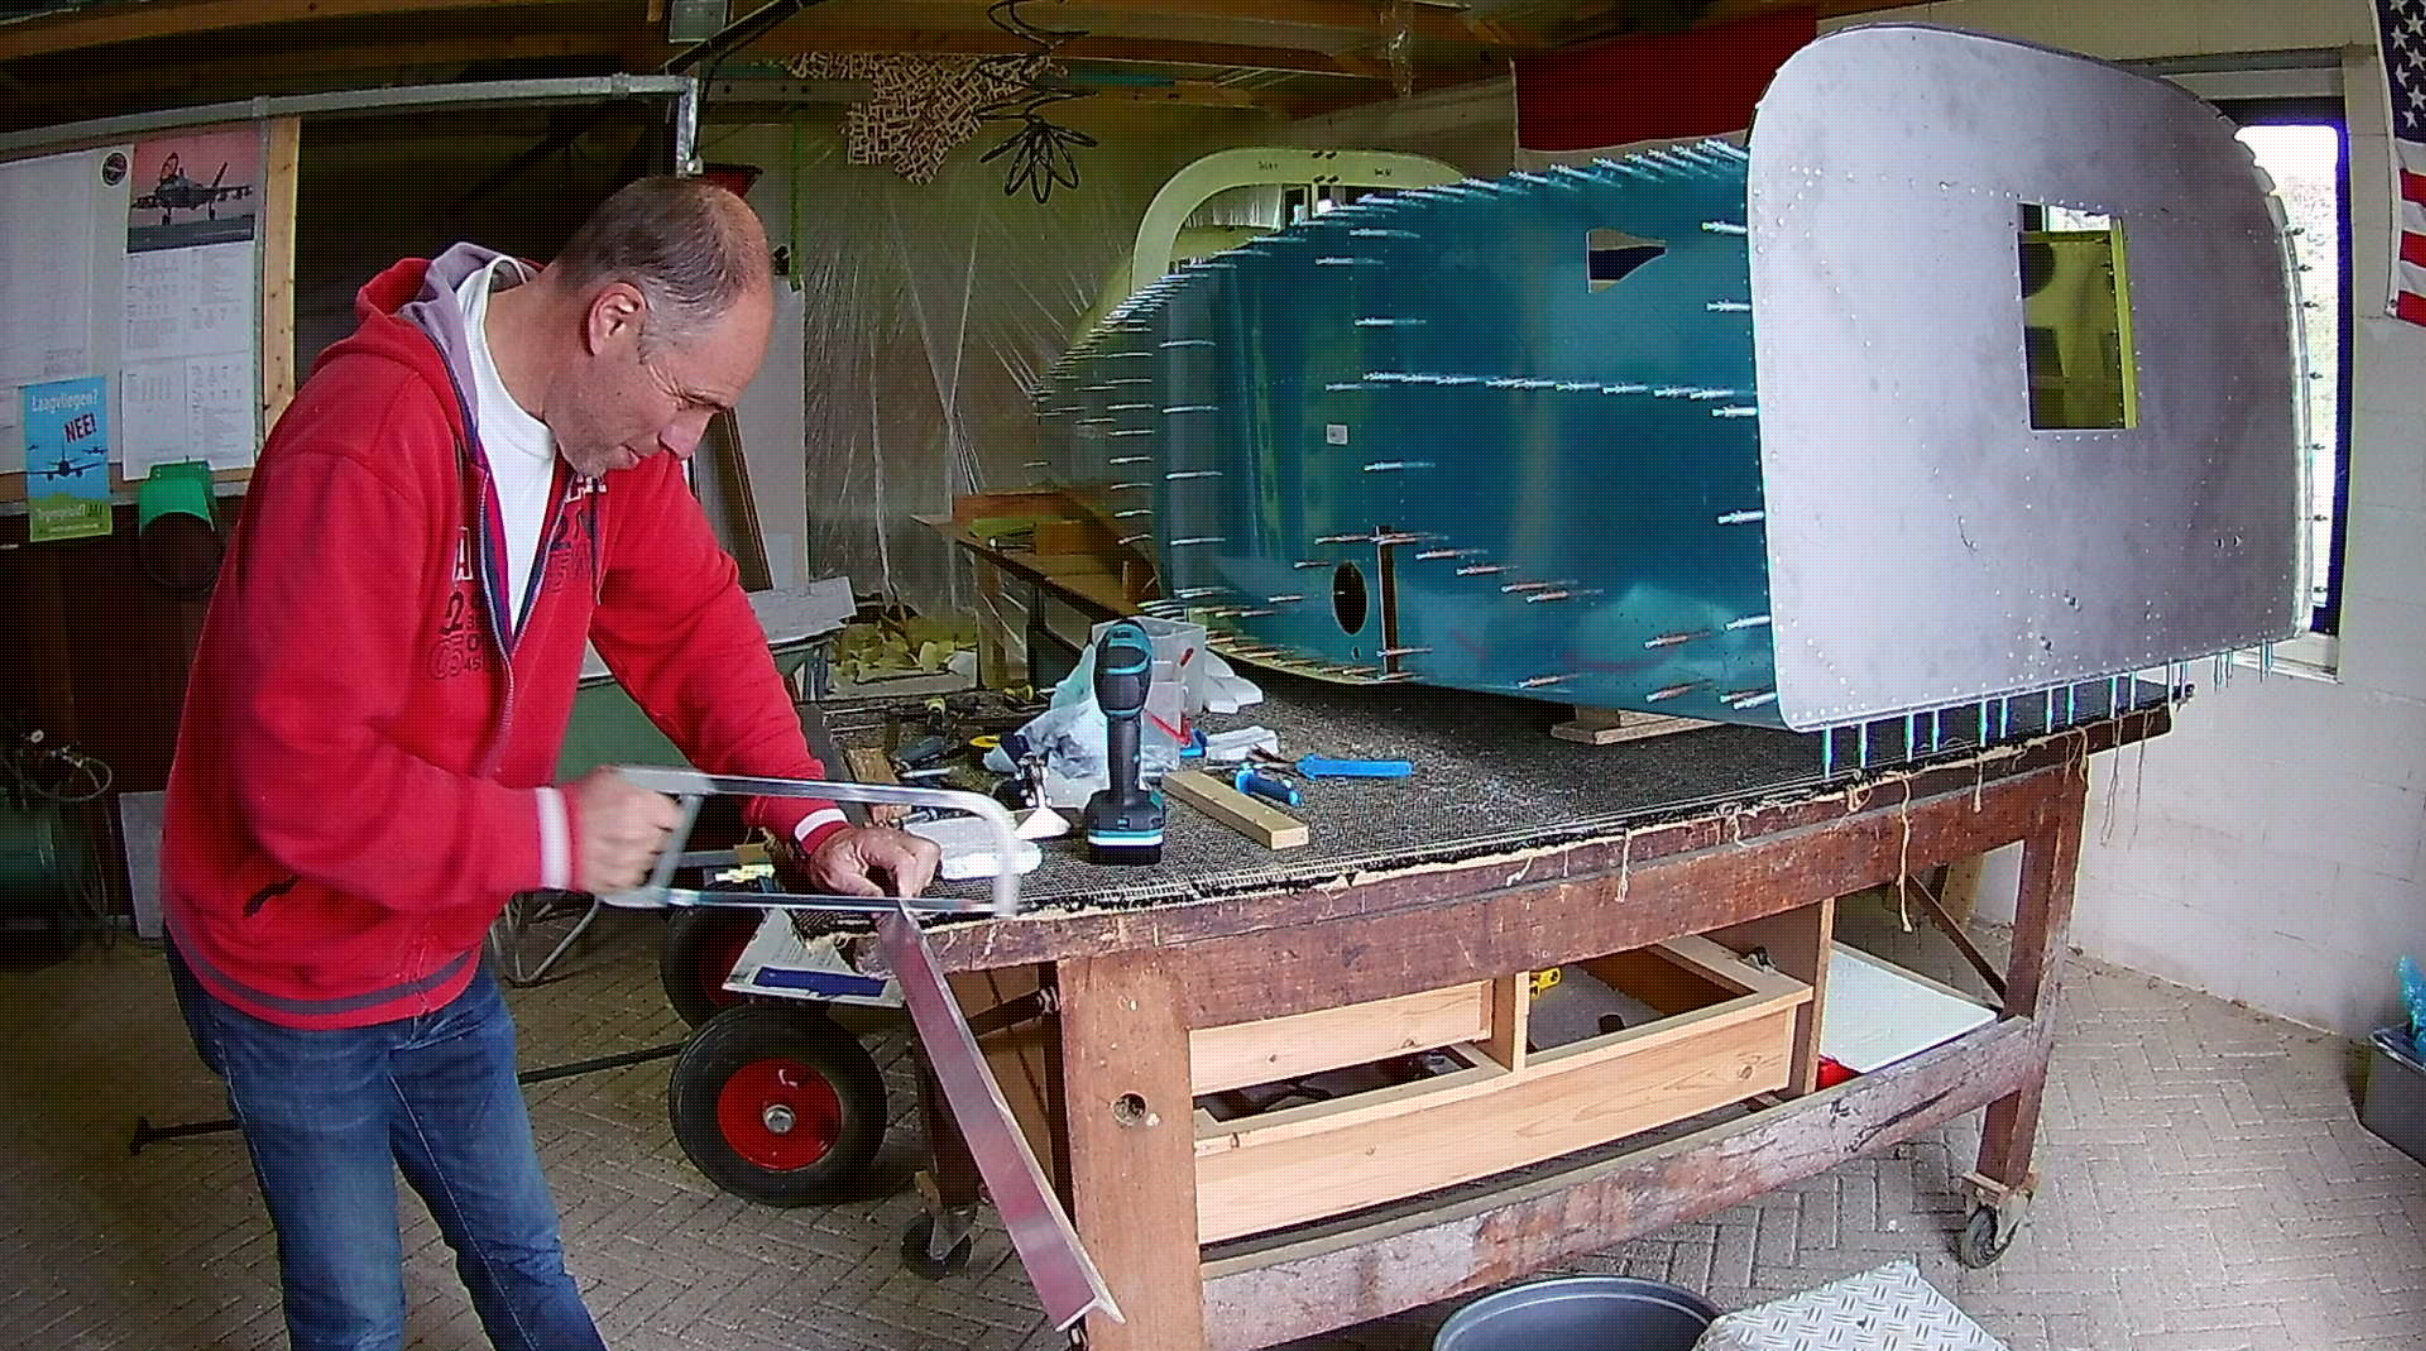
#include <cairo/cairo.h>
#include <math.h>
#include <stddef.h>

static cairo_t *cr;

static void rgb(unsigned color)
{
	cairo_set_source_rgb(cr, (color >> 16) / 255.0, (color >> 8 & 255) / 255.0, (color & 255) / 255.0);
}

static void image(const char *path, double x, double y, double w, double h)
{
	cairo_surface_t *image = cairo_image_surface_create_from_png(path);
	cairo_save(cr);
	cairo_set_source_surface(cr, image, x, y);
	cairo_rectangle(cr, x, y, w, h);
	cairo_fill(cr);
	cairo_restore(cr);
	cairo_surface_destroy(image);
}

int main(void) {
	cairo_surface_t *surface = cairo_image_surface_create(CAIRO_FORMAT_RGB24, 2426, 1351);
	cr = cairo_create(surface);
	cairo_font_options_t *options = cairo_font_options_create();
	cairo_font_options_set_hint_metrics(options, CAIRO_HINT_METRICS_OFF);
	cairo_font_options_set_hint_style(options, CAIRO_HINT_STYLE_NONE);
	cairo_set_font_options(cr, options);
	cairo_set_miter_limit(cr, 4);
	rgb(0xffffff);
	cairo_paint(cr);
	image("img/1.png", 0, 0, 2426, 1351);
	image("img/2.png", 1, 1, 2425, 1348);
	cairo_surface_write_to_png(surface, "page.png");
	cairo_font_options_destroy(options);
	cairo_destroy(cr);
	cairo_surface_destroy(surface);
	return 0;
}
